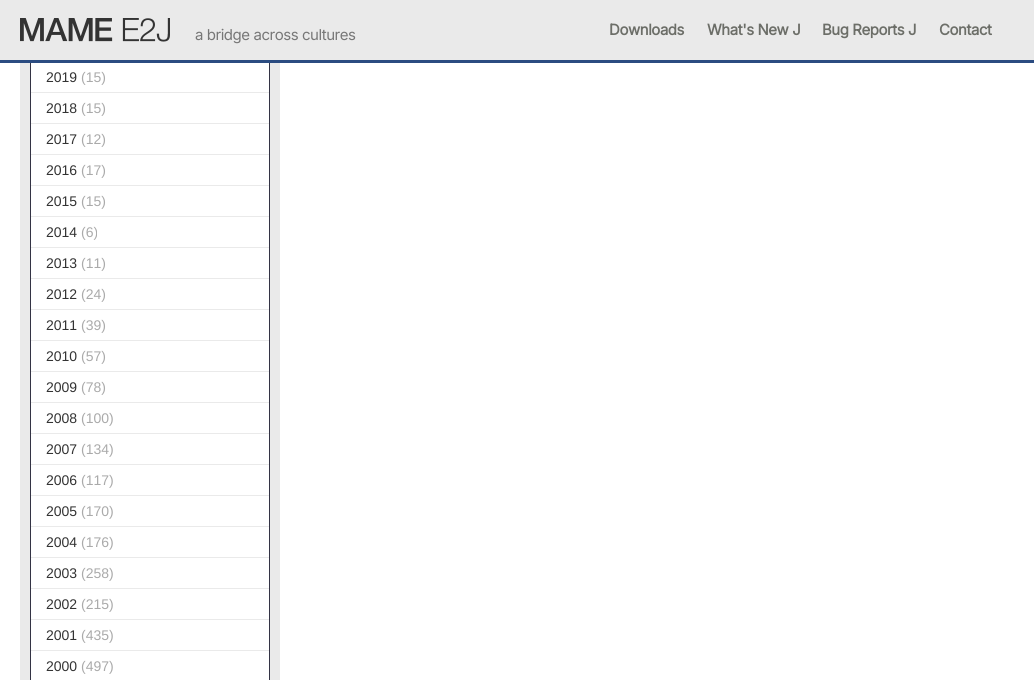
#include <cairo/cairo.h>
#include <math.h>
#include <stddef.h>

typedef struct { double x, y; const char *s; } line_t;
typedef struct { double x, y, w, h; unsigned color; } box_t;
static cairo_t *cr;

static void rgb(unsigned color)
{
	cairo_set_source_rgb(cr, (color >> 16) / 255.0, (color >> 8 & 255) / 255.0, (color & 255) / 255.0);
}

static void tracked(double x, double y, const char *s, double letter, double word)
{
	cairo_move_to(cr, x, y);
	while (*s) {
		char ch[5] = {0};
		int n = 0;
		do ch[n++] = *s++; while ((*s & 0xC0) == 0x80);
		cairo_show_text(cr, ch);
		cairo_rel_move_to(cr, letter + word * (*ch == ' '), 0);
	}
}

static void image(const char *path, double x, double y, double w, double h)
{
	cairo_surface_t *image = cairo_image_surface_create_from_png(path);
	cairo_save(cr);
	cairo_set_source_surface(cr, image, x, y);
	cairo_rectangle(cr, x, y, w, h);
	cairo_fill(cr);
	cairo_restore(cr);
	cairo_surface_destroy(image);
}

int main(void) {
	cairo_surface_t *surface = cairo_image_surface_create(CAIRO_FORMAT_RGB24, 1034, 680);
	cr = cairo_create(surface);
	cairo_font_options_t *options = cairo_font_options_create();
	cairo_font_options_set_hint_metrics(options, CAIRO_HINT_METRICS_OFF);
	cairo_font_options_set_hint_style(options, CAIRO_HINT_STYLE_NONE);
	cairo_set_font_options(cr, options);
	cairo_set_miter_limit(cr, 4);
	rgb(0xffffff);
	cairo_paint(cr);
	rgb(0xeaeaea);
	cairo_rectangle(cr, 20, 63, 260, 617);
	cairo_fill(cr);
	cairo_rectangle(cr, 30.5, -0.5, 239, 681);
	rgb(0x333344);
	cairo_set_line_width(cr, 1);
	cairo_stroke(cr);
	rgb(0xeaeaea);
	cairo_rectangle(cr, 0, 0, 1034, 60);
	cairo_fill(cr);
	rgb(0x2b4c81);
	cairo_rectangle(cr, 0, 60, 1034, 3);
	cairo_fill(cr);
	image("img/1.png", 20, 18, 150, 24);
	{
		static const box_t items[] = {
			{31, 63, 238, 29, 0xffffff},
			{31, 93, 238, 30, 0xffffff},
			{31, 124, 238, 30, 0xffffff},
			{31, 155, 238, 30, 0xffffff},
			{31, 186, 238, 30, 0xffffff},
			{31, 217, 238, 30, 0xffffff},
			{31, 248, 238, 30, 0xffffff},
			{31, 279, 238, 30, 0xffffff},
			{31, 310, 238, 30, 0xffffff},
			{31, 341, 238, 30, 0xffffff},
			{31, 372, 238, 30, 0xffffff},
			{31, 403, 238, 30, 0xffffff},
			{31, 434, 238, 30, 0xffffff},
			{31, 465, 238, 30, 0xffffff},
			{31, 496, 238, 30, 0xffffff},
			{31, 527, 238, 30, 0xffffff},
			{31, 558, 238, 30, 0xffffff},
			{31, 589, 238, 30, 0xffffff},
			{31, 620, 238, 30, 0xffffff},
			{31, 651, 238, 29, 0xffffff},
		};
		for (size_t i = 0; i < sizeof items / sizeof *items; i++) {
			rgb(items[i].color);
			cairo_rectangle(cr, items[i].x, items[i].y, items[i].w, items[i].h);
			cairo_fill(cr);
		}
	}
	cairo_select_font_face(cr, "Inter", CAIRO_FONT_SLANT_NORMAL, CAIRO_FONT_WEIGHT_NORMAL);
	cairo_set_font_size(cr, 15);
	rgb(0x777777);
	tracked(195, 40, "a bridge across cultures", -0.45, 0);
	cairo_select_font_face(cr, "Inter", CAIRO_FONT_SLANT_NORMAL, CAIRO_FONT_WEIGHT_BOLD);
	rgb(0x6c6e68);
	{
		static const line_t items[] = {
			{609, 35, "Downloads"},
			{707, 35, "What's New J"},
			{822, 35, "Bug Reports J"},
			{939, 35, "Contact"},
		};
		for (size_t i = 0; i < sizeof items / sizeof *items; i++) {
			tracked(items[i].x, items[i].y, items[i].s, -0.45, 0);
		}
	}
	cairo_select_font_face(cr, "Liberation Sans", CAIRO_FONT_SLANT_NORMAL, CAIRO_FONT_WEIGHT_NORMAL);
	cairo_set_font_size(cr, 14);
	rgb(0x333333);
	cairo_move_to(cr, 46, 82);
	cairo_show_text(cr, "2019");
	rgb(0xaaaaaa);
	cairo_move_to(cr, 81, 82);
	cairo_show_text(cr, "(15)");
	rgb(0x333333);
	cairo_move_to(cr, 46, 113);
	cairo_show_text(cr, "2018");
	rgb(0xaaaaaa);
	cairo_move_to(cr, 81, 113);
	cairo_show_text(cr, "(15)");
	rgb(0x333333);
	cairo_move_to(cr, 46, 144);
	cairo_show_text(cr, "2017");
	rgb(0xaaaaaa);
	cairo_move_to(cr, 81, 144);
	cairo_show_text(cr, "(12)");
	rgb(0x333333);
	cairo_move_to(cr, 46, 175);
	cairo_show_text(cr, "2016");
	rgb(0xaaaaaa);
	cairo_move_to(cr, 81, 175);
	cairo_show_text(cr, "(17)");
	rgb(0x333333);
	cairo_move_to(cr, 46, 206);
	cairo_show_text(cr, "2015");
	rgb(0xaaaaaa);
	cairo_move_to(cr, 81, 206);
	cairo_show_text(cr, "(15)");
	rgb(0x333333);
	cairo_move_to(cr, 46, 237);
	cairo_show_text(cr, "2014");
	rgb(0xaaaaaa);
	cairo_move_to(cr, 81, 237);
	cairo_show_text(cr, "(6)");
	rgb(0x333333);
	cairo_move_to(cr, 46, 268);
	cairo_show_text(cr, "2013");
	rgb(0xaaaaaa);
	cairo_move_to(cr, 81, 268);
	cairo_show_text(cr, "(11)");
	rgb(0x333333);
	cairo_move_to(cr, 46, 299);
	cairo_show_text(cr, "2012");
	rgb(0xaaaaaa);
	cairo_move_to(cr, 81, 299);
	cairo_show_text(cr, "(24)");
	rgb(0x333333);
	cairo_move_to(cr, 46, 330);
	cairo_show_text(cr, "2011");
	rgb(0xaaaaaa);
	cairo_move_to(cr, 81, 330);
	cairo_show_text(cr, "(39)");
	rgb(0x333333);
	cairo_move_to(cr, 46, 361);
	cairo_show_text(cr, "2010");
	rgb(0xaaaaaa);
	cairo_move_to(cr, 81, 361);
	cairo_show_text(cr, "(57)");
	rgb(0x333333);
	cairo_move_to(cr, 46, 392);
	cairo_show_text(cr, "2009");
	rgb(0xaaaaaa);
	cairo_move_to(cr, 81, 392);
	cairo_show_text(cr, "(78)");
	rgb(0x333333);
	cairo_move_to(cr, 46, 423);
	cairo_show_text(cr, "2008");
	rgb(0xaaaaaa);
	cairo_move_to(cr, 81, 423);
	cairo_show_text(cr, "(100)");
	rgb(0x333333);
	cairo_move_to(cr, 46, 454);
	cairo_show_text(cr, "2007");
	rgb(0xaaaaaa);
	cairo_move_to(cr, 81, 454);
	cairo_show_text(cr, "(134)");
	rgb(0x333333);
	cairo_move_to(cr, 46, 485);
	cairo_show_text(cr, "2006");
	rgb(0xaaaaaa);
	cairo_move_to(cr, 81, 485);
	cairo_show_text(cr, "(117)");
	rgb(0x333333);
	cairo_move_to(cr, 46, 516);
	cairo_show_text(cr, "2005");
	rgb(0xaaaaaa);
	cairo_move_to(cr, 81, 516);
	cairo_show_text(cr, "(170)");
	rgb(0x333333);
	cairo_move_to(cr, 46, 547);
	cairo_show_text(cr, "2004");
	rgb(0xaaaaaa);
	cairo_move_to(cr, 81, 547);
	cairo_show_text(cr, "(176)");
	rgb(0x333333);
	cairo_move_to(cr, 46, 578);
	cairo_show_text(cr, "2003");
	rgb(0xaaaaaa);
	cairo_move_to(cr, 81, 578);
	cairo_show_text(cr, "(258)");
	rgb(0x333333);
	cairo_move_to(cr, 46, 609);
	cairo_show_text(cr, "2002");
	rgb(0xaaaaaa);
	cairo_move_to(cr, 81, 609);
	cairo_show_text(cr, "(215)");
	rgb(0x333333);
	cairo_move_to(cr, 46, 640);
	cairo_show_text(cr, "2001");
	rgb(0xaaaaaa);
	cairo_move_to(cr, 81, 640);
	cairo_show_text(cr, "(435)");
	rgb(0x333333);
	cairo_move_to(cr, 46, 671);
	cairo_show_text(cr, "2000");
	rgb(0xaaaaaa);
	cairo_move_to(cr, 81, 671);
	cairo_show_text(cr, "(497)");
	cairo_surface_write_to_png(surface, "page.png");
	cairo_font_options_destroy(options);
	cairo_destroy(cr);
	cairo_surface_destroy(surface);
	return 0;
}
